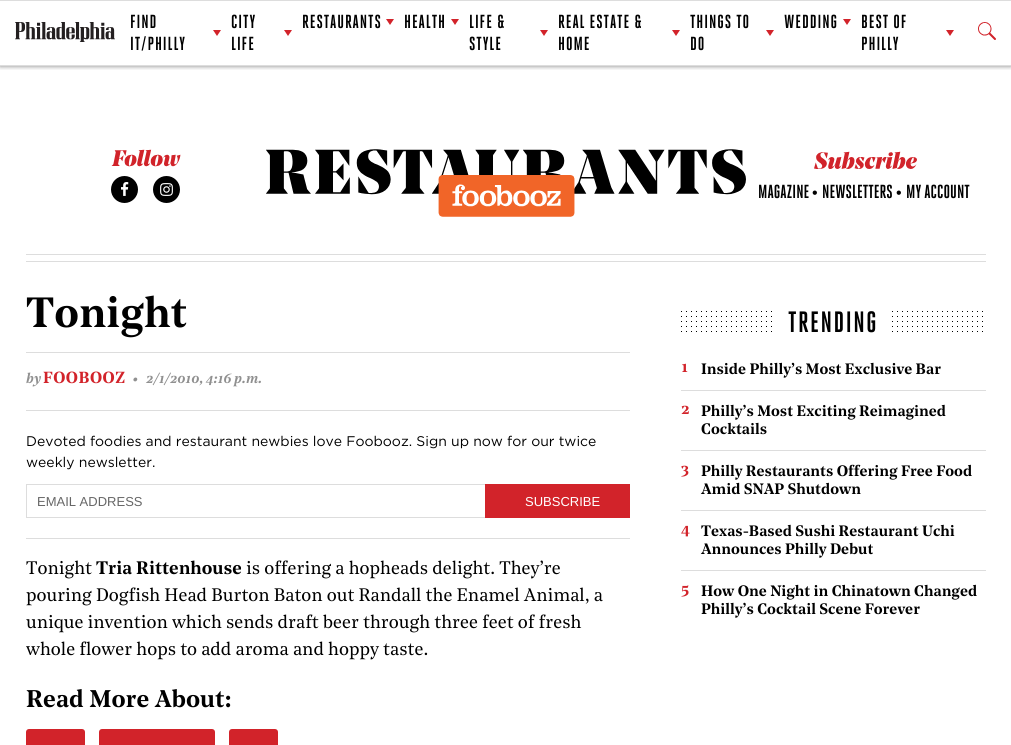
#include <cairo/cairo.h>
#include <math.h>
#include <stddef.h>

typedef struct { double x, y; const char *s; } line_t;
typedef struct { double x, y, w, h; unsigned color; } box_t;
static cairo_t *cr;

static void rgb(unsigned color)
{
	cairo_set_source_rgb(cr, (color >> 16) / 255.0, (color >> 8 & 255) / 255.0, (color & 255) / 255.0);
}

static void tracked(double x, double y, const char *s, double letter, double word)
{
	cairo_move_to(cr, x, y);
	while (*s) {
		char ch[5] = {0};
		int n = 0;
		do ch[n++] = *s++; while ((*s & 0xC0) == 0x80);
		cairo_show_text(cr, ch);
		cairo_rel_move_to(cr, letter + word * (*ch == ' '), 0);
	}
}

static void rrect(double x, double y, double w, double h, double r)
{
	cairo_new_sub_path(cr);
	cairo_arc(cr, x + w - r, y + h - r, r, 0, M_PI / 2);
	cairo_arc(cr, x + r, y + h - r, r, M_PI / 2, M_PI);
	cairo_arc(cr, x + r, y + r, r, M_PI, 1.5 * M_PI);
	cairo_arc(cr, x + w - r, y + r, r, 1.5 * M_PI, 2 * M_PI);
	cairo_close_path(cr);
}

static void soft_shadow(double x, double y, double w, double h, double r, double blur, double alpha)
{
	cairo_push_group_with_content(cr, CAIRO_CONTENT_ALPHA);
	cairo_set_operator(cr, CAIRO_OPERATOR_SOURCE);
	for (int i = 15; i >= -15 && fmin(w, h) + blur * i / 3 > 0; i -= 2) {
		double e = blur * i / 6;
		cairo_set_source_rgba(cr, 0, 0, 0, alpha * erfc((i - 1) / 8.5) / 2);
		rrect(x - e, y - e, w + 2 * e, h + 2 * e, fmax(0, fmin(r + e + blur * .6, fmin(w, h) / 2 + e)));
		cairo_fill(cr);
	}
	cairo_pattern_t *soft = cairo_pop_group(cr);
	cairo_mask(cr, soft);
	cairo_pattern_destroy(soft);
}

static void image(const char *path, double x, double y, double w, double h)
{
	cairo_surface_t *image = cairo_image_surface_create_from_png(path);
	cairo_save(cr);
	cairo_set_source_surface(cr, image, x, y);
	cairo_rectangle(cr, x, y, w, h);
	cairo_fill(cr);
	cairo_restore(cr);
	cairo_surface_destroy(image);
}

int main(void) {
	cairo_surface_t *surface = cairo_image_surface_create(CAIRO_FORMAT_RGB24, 1011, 745);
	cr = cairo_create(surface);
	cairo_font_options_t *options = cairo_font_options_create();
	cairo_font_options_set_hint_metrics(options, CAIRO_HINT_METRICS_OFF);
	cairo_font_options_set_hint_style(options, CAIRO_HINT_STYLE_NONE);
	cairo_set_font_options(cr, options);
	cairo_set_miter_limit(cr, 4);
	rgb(0xffffff);
	cairo_paint(cr);
	cairo_save(cr);
	cairo_rectangle(cr, 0, 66, 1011, 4);
	cairo_clip(cr);
	rgb(0x000000);
	soft_shadow(0, 0, 1011, 66, 0, 2.5, 0.5);
	cairo_restore(cr);
	rgb(0xdddddd);
	cairo_rectangle(cr, 0, 0, 1011, 1);
	cairo_fill(cr);
	cairo_rectangle(cr, 0, 65, 1011, 1);
	cairo_fill(cr);
	image("img/1.png", 15, 22, 100, 20);
	rgb(0xd2232a);
	cairo_new_path(cr);
	cairo_move_to(cr, 213, 30);
	cairo_line_to(cr, 221, 30);
	cairo_line_to(cr, 217, 36);
	cairo_close_path(cr);
	cairo_fill(cr);
	cairo_new_path(cr);
	cairo_move_to(cr, 284, 30);
	cairo_line_to(cr, 292, 30);
	cairo_line_to(cr, 288, 36);
	cairo_close_path(cr);
	cairo_fill(cr);
	cairo_new_path(cr);
	cairo_move_to(cr, 386, 19);
	cairo_line_to(cr, 394, 19);
	cairo_line_to(cr, 390, 25);
	cairo_close_path(cr);
	cairo_fill(cr);
	cairo_new_path(cr);
	cairo_move_to(cr, 451, 19);
	cairo_line_to(cr, 459, 19);
	cairo_line_to(cr, 455, 25);
	cairo_close_path(cr);
	cairo_fill(cr);
	cairo_new_path(cr);
	cairo_move_to(cr, 540, 30);
	cairo_line_to(cr, 548, 30);
	cairo_line_to(cr, 544, 36);
	cairo_close_path(cr);
	cairo_fill(cr);
	cairo_new_path(cr);
	cairo_move_to(cr, 672, 30);
	cairo_line_to(cr, 680, 30);
	cairo_line_to(cr, 676, 36);
	cairo_close_path(cr);
	cairo_fill(cr);
	cairo_new_path(cr);
	cairo_move_to(cr, 766, 30);
	cairo_line_to(cr, 774, 30);
	cairo_line_to(cr, 770, 36);
	cairo_close_path(cr);
	cairo_fill(cr);
	cairo_new_path(cr);
	cairo_move_to(cr, 843, 19);
	cairo_line_to(cr, 851, 19);
	cairo_line_to(cr, 847, 25);
	cairo_close_path(cr);
	cairo_fill(cr);
	cairo_new_path(cr);
	cairo_move_to(cr, 946, 30);
	cairo_line_to(cr, 954, 30);
	cairo_line_to(cr, 950, 36);
	cairo_close_path(cr);
	cairo_fill(cr);
	image("img/2.png", 978, 22, 18, 18);
	image("img/3.png", 111, 149, 70, 18);
	rgb(0x000000);
	cairo_arc(cr, 124.5, 189.5, 13.5, 0, 2 * M_PI);
	cairo_fill(cr);
	image("img/4.png", 121, 182, 8, 14);
	cairo_arc(cr, 166.5, 189.5, 13.5, 0, 2 * M_PI);
	cairo_fill(cr);
	image("img/5.png", 160, 183, 13, 13);
	image("img/6.png", 266, 149, 480, 68);
	image("img/7.png", 814, 151, 103, 18);
	{
		static const box_t items[] = {
			{26, 254, 960, 1, 0xdddddd},
			{26, 261, 960, 1, 0xdddddd},
			{26, 352, 604, 1, 0xdddddd},
			{26, 410, 604, 1, 0xdddddd},
			{26, 538, 604, 1, 0xdddddd},
		};
		for (size_t i = 0; i < sizeof items / sizeof *items; i++) {
			rgb(items[i].color);
			cairo_rectangle(cr, items[i].x, items[i].y, items[i].w, items[i].h);
			cairo_fill(cr);
		}
	}
	cairo_rectangle(cr, 26.5, 484.5, 603, 33);
	cairo_set_line_width(cr, 1);
	cairo_stroke(cr);
	rgb(0xd2232a);
	cairo_rectangle(cr, 485, 484, 145, 34);
	cairo_fill(cr);
	rrect(26, 729, 59, 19, 3);
	cairo_fill(cr);
	rrect(99, 729, 116, 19, 3);
	cairo_fill(cr);
	rrect(229, 729, 49, 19, 3);
	cairo_fill(cr);
	image("img/8.png", 681, 311, 91, 21);
	image("img/8.png", 892, 311, 91, 21);
	{
		static const box_t items[] = {
			{681, 390, 305, 1, 0xdddddd},
			{681, 450, 305, 1, 0xdddddd},
			{681, 510, 305, 1, 0xdddddd},
			{681, 570, 305, 1, 0xdddddd},
		};
		for (size_t i = 0; i < sizeof items / sizeof *items; i++) {
			rgb(items[i].color);
			cairo_rectangle(cr, items[i].x, items[i].y, items[i].w, items[i].h);
			cairo_fill(cr);
		}
	}
	cairo_select_font_face(cr, "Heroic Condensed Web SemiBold", CAIRO_FONT_SLANT_NORMAL, CAIRO_FONT_WEIGHT_NORMAL);
	cairo_set_font_size(cr, 18);
	rgb(0x000000);
	{
		static const line_t items[] = {
			{130, 28, "FIND"},
			{130, 50, "IT/PHILLY"},
			{231, 28, "CITY"},
			{231, 50, "LIFE"},
			{302, 28, "RESTAURANTS"},
			{404, 28, "HEALTH"},
			{469, 28, "LIFE &"},
			{469, 50, "STYLE"},
			{558, 28, "REAL ESTATE &"},
			{558, 50, "HOME"},
			{690, 28, "THINGS TO"},
			{690, 50, "DO"},
			{784, 28, "WEDDING"},
			{861, 28, "BEST OF"},
			{861, 50, "PHILLY"},
		};
		for (size_t i = 0; i < sizeof items / sizeof *items; i++) {
			tracked(items[i].x, items[i].y, items[i].s, 0.9, 0);
		}
	}
	cairo_move_to(cr, 758, 198);
	cairo_show_text(cr, "MAGAZINE");
	cairo_select_font_face(cr, "Liberation Sans", CAIRO_FONT_SLANT_NORMAL, CAIRO_FONT_WEIGHT_NORMAL);
	cairo_set_font_size(cr, 16);
	cairo_move_to(cr, 812, 198);
	cairo_show_text(cr, "•");
	cairo_select_font_face(cr, "Heroic Condensed Web SemiBold", CAIRO_FONT_SLANT_NORMAL, CAIRO_FONT_WEIGHT_NORMAL);
	cairo_set_font_size(cr, 18);
	cairo_move_to(cr, 822, 198);
	cairo_show_text(cr, "NEWSLETTERS");
	cairo_select_font_face(cr, "Liberation Sans", CAIRO_FONT_SLANT_NORMAL, CAIRO_FONT_WEIGHT_NORMAL);
	cairo_set_font_size(cr, 16);
	cairo_move_to(cr, 896, 198);
	cairo_show_text(cr, "•");
	cairo_select_font_face(cr, "Heroic Condensed Web SemiBold", CAIRO_FONT_SLANT_NORMAL, CAIRO_FONT_WEIGHT_NORMAL);
	cairo_set_font_size(cr, 18);
	cairo_move_to(cr, 906, 198);
	cairo_show_text(cr, "MY ACCOUNT");
	cairo_select_font_face(cr, "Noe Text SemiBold", CAIRO_FONT_SLANT_NORMAL, CAIRO_FONT_WEIGHT_NORMAL);
	cairo_set_font_size(cr, 42);
	cairo_move_to(cr, 26, 327);
	cairo_show_text(cr, "Tonight");
	cairo_select_font_face(cr, "Noe Text SemiBold", CAIRO_FONT_SLANT_ITALIC, CAIRO_FONT_WEIGHT_NORMAL);
	cairo_set_font_size(cr, 14);
	rgb(0x909090);
	cairo_move_to(cr, 26, 383);
	cairo_show_text(cr, "by");
	cairo_select_font_face(cr, "Noe Text SemiBold", CAIRO_FONT_SLANT_NORMAL, CAIRO_FONT_WEIGHT_NORMAL);
	cairo_set_font_size(cr, 16);
	rgb(0xd2232a);
	tracked(43, 383, "FOOBOOZ", 0.5, 0);
	cairo_select_font_face(cr, "Noe Text SemiBold", CAIRO_FONT_SLANT_ITALIC, CAIRO_FONT_WEIGHT_NORMAL);
	cairo_set_font_size(cr, 22);
	rgb(0x909090);
	cairo_move_to(cr, 132, 386);
	cairo_show_text(cr, "·");
	cairo_set_font_size(cr, 14);
	cairo_move_to(cr, 146, 383);
	cairo_show_text(cr, "2/1/2010, 4:16 p.m.");
	cairo_select_font_face(cr, "Gotham", CAIRO_FONT_SLANT_NORMAL, CAIRO_FONT_WEIGHT_NORMAL);
	rgb(0x000000);
	cairo_move_to(cr, 26, 446);
	cairo_show_text(cr, "Devoted foodies and restaurant newbies love Foobooz. Sign up now for our twice");
	cairo_move_to(cr, 26, 467);
	cairo_show_text(cr, "weekly newsletter.");
	cairo_select_font_face(cr, "Liberation Sans", CAIRO_FONT_SLANT_NORMAL, CAIRO_FONT_WEIGHT_NORMAL);
	cairo_set_font_size(cr, 13);
	rgb(0x666666);
	cairo_move_to(cr, 37, 506);
	cairo_show_text(cr, "EMAIL ADDRESS");
	rgb(0xffffff);
	cairo_move_to(cr, 525, 506);
	cairo_show_text(cr, "SUBSCRIBE");
	cairo_select_font_face(cr, "Noe Text", CAIRO_FONT_SLANT_NORMAL, CAIRO_FONT_WEIGHT_NORMAL);
	cairo_set_font_size(cr, 18);
	rgb(0x000000);
	cairo_move_to(cr, 26, 574);
	cairo_show_text(cr, "Tonight");
	cairo_select_font_face(cr, "Noe Text SemiBold", CAIRO_FONT_SLANT_NORMAL, CAIRO_FONT_WEIGHT_NORMAL);
	cairo_move_to(cr, 96, 574);
	cairo_show_text(cr, "Tria Rittenhouse");
	cairo_select_font_face(cr, "Noe Text", CAIRO_FONT_SLANT_NORMAL, CAIRO_FONT_WEIGHT_NORMAL);
	{
		static const line_t items[] = {
			{246, 574, "is offering a hopheads delight. They’re"},
			{26, 601, "pouring Dogfish Head Burton Baton out Randall the Enamel Animal, a"},
			{26, 628, "unique invention which sends draft beer through three feet of fresh"},
			{26, 655, "whole flower hops to add aroma and hoppy taste."},
		};
		for (size_t i = 0; i < sizeof items / sizeof *items; i++) {
			cairo_move_to(cr, items[i].x, items[i].y);
			cairo_show_text(cr, items[i].s);
		}
	}
	cairo_select_font_face(cr, "Noe Text SemiBold", CAIRO_FONT_SLANT_NORMAL, CAIRO_FONT_WEIGHT_NORMAL);
	cairo_set_font_size(cr, 24);
	cairo_move_to(cr, 26, 707);
	cairo_show_text(cr, "Read More About:");
	cairo_select_font_face(cr, "Heroic Condensed Web SemiBold", CAIRO_FONT_SLANT_NORMAL, CAIRO_FONT_WEIGHT_NORMAL);
	cairo_set_font_size(cr, 28);
	tracked(788, 332, "TRENDING", 1.5, 0);
	cairo_select_font_face(cr, "Noe Text SemiBold", CAIRO_FONT_SLANT_NORMAL, CAIRO_FONT_WEIGHT_NORMAL);
	cairo_set_font_size(cr, 16);
	rgb(0xd2232a);
	cairo_move_to(cr, 681, 372);
	cairo_show_text(cr, "1");
	cairo_set_font_size(cr, 15);
	rgb(0x000000);
	cairo_move_to(cr, 701, 374);
	cairo_show_text(cr, "Inside Philly’s Most Exclusive Bar");
	cairo_set_font_size(cr, 16);
	rgb(0xd2232a);
	cairo_move_to(cr, 681, 414);
	cairo_show_text(cr, "2");
	cairo_set_font_size(cr, 15);
	rgb(0x000000);
	cairo_move_to(cr, 701, 416);
	cairo_show_text(cr, "Philly’s Most Exciting Reimagined");
	cairo_move_to(cr, 701, 434);
	cairo_show_text(cr, "Cocktails");
	cairo_set_font_size(cr, 16);
	rgb(0xd2232a);
	cairo_move_to(cr, 681, 474);
	cairo_show_text(cr, "3");
	cairo_set_font_size(cr, 15);
	rgb(0x000000);
	cairo_move_to(cr, 701, 476);
	cairo_show_text(cr, "Philly Restaurants Offering Free Food");
	cairo_move_to(cr, 701, 494);
	cairo_show_text(cr, "Amid SNAP Shutdown");
	cairo_set_font_size(cr, 16);
	rgb(0xd2232a);
	cairo_move_to(cr, 681, 534);
	cairo_show_text(cr, "4");
	cairo_set_font_size(cr, 15);
	rgb(0x000000);
	cairo_move_to(cr, 701, 536);
	cairo_show_text(cr, "Texas-Based Sushi Restaurant Uchi");
	cairo_move_to(cr, 701, 554);
	cairo_show_text(cr, "Announces Philly Debut");
	cairo_set_font_size(cr, 16);
	rgb(0xd2232a);
	cairo_move_to(cr, 681, 594);
	cairo_show_text(cr, "5");
	cairo_set_font_size(cr, 15);
	rgb(0x000000);
	cairo_move_to(cr, 701, 596);
	cairo_show_text(cr, "How One Night in Chinatown Changed");
	cairo_move_to(cr, 701, 614);
	cairo_show_text(cr, "Philly’s Cocktail Scene Forever");
	cairo_surface_write_to_png(surface, "page.png");
	cairo_font_options_destroy(options);
	cairo_destroy(cr);
	cairo_surface_destroy(surface);
	return 0;
}
